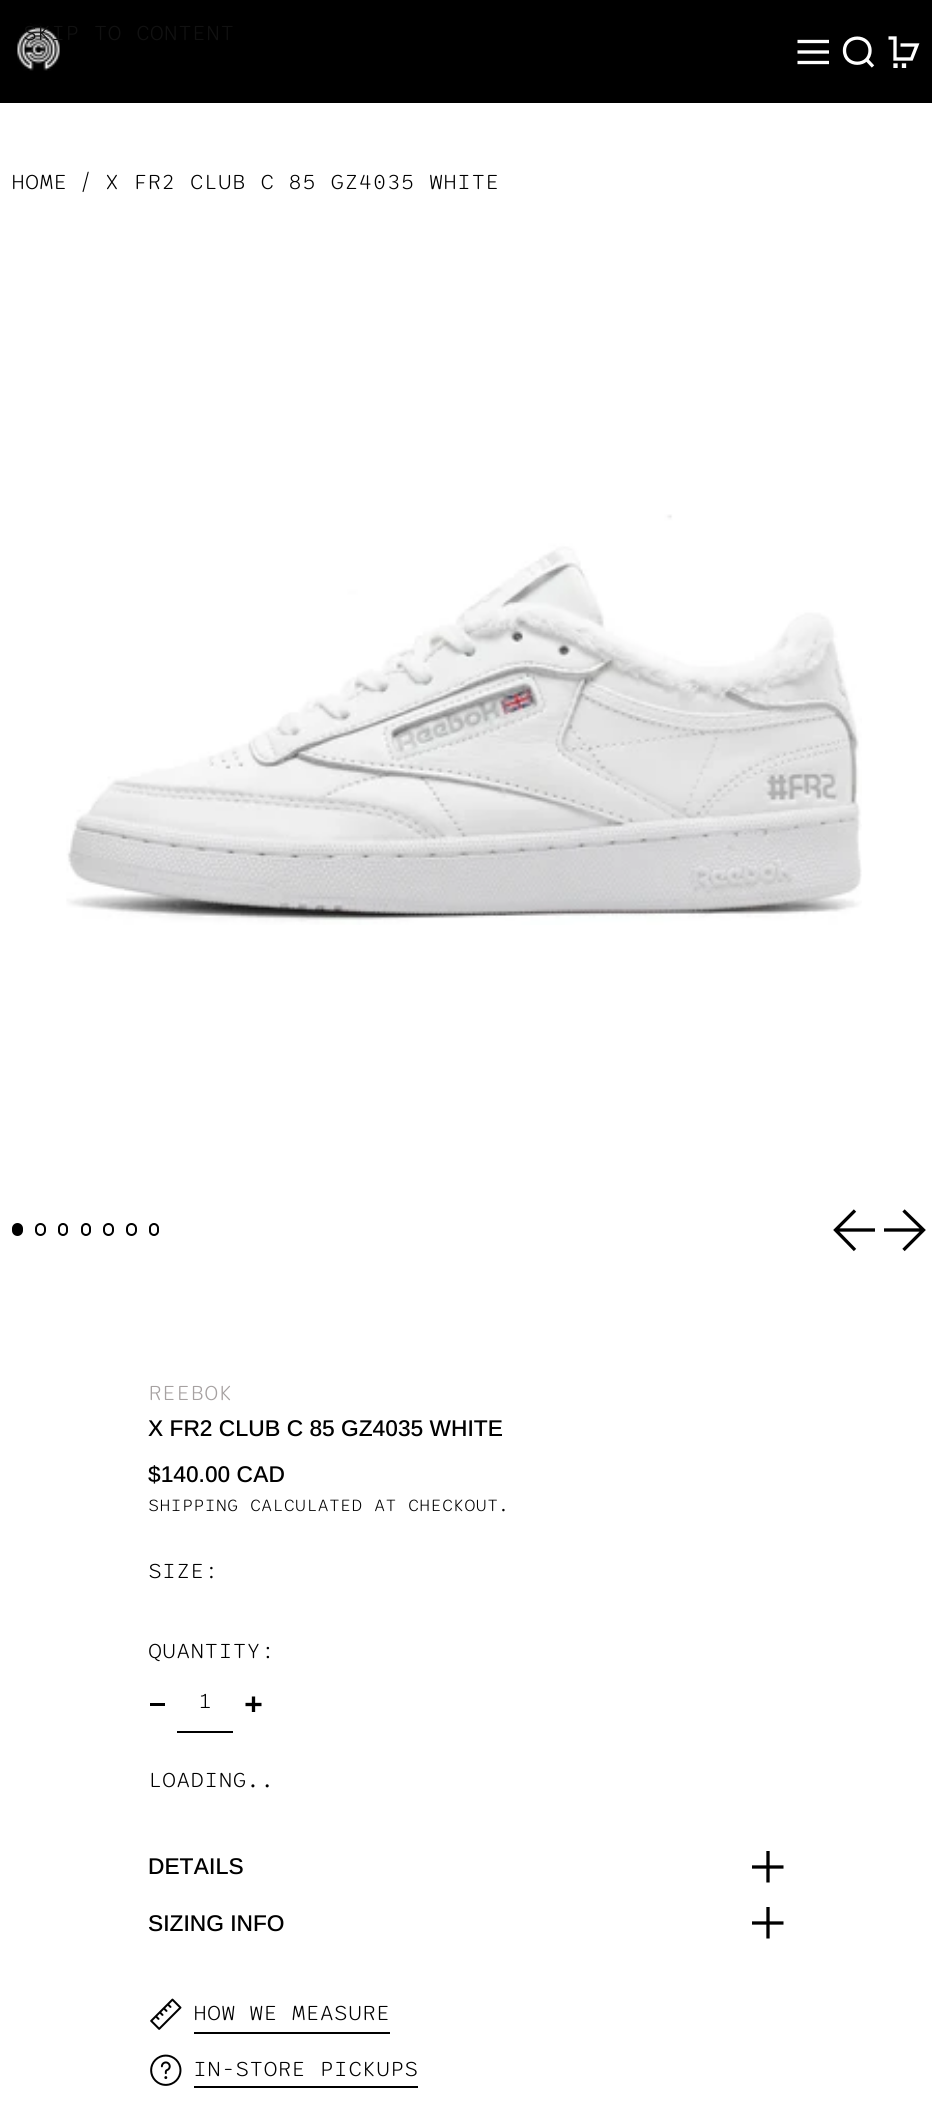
#include <cairo/cairo.h>
#include <math.h>
#include <stddef.h>

typedef struct { double x, y; const char *s; } line_t;
static cairo_t *cr;

static void rgb(unsigned color)
{
	cairo_set_source_rgb(cr, (color >> 16) / 255.0, (color >> 8 & 255) / 255.0, (color & 255) / 255.0);
}

static void rrect(double x, double y, double w, double h, double r)
{
	cairo_new_sub_path(cr);
	cairo_arc(cr, x + w - r, y + h - r, r, 0, M_PI / 2);
	cairo_arc(cr, x + r, y + h - r, r, M_PI / 2, M_PI);
	cairo_arc(cr, x + r, y + r, r, M_PI, 1.5 * M_PI);
	cairo_arc(cr, x + w - r, y + r, r, 1.5 * M_PI, 2 * M_PI);
	cairo_close_path(cr);
}

static void image(const char *path, double x, double y, double w, double h)
{
	cairo_surface_t *image = cairo_image_surface_create_from_png(path);
	cairo_save(cr);
	cairo_set_source_surface(cr, image, x, y);
	cairo_rectangle(cr, x, y, w, h);
	cairo_fill(cr);
	cairo_restore(cr);
	cairo_surface_destroy(image);
}

int main(void) {
	cairo_surface_t *surface = cairo_image_surface_create(CAIRO_FORMAT_RGB24, 932, 2128);
	cr = cairo_create(surface);
	cairo_font_options_t *options = cairo_font_options_create();
	cairo_font_options_set_hint_metrics(options, CAIRO_HINT_METRICS_OFF);
	cairo_font_options_set_hint_style(options, CAIRO_HINT_STYLE_NONE);
	cairo_set_font_options(cr, options);
	cairo_set_miter_limit(cr, 4);
	rgb(0xffffff);
	cairo_paint(cr);
	rgb(0x000000);
	cairo_rectangle(cr, 0, 0, 932, 103);
	cairo_fill(cr);
	image("img/1.png", 17, 23, 43, 48);
	cairo_new_path(cr);
	cairo_move_to(cr, 797.5, 41.5);
	cairo_line_to(cr, 829, 41.5);
	cairo_move_to(cr, 797.5, 52);
	cairo_line_to(cr, 829, 52);
	cairo_move_to(cr, 797.5, 62.5);
	cairo_line_to(cr, 829, 62.5);
	rgb(0xffffff);
	cairo_set_line_width(cr, 3.3);
	cairo_stroke(cr);
	cairo_new_path(cr);
	cairo_move_to(cr, 844.5, 50.5);
	cairo_curve_to(cr, 844.5, 67.5, 870, 67.5, 870, 50.5);
	cairo_curve_to(cr, 870, 34, 844.5, 34, 844.5, 50.5);
	cairo_close_path(cr);
	cairo_move_to(cr, 866.5, 59.5);
	cairo_line_to(cr, 873, 66.5);
	cairo_stroke(cr);
	cairo_save(cr);
	cairo_rectangle(cr, 887, 35, 35, 33);
	cairo_clip(cr);
	cairo_new_path(cr);
	cairo_move_to(cr, 888.5, 38);
	cairo_line_to(cr, 895, 38);
	cairo_line_to(cr, 895, 59);
	cairo_line_to(cr, 911.5, 59);
	cairo_line_to(cr, 917, 45);
	cairo_line_to(cr, 900.5, 45);
	cairo_move_to(cr, 895, 66.5);
	cairo_line_to(cr, 895, 65);
	cairo_line_to(cr, 896, 65);
	cairo_line_to(cr, 896, 66.5);
	cairo_close_path(cr);
	cairo_move_to(cr, 903.5, 66.5);
	cairo_line_to(cr, 903.5, 65);
	cairo_line_to(cr, 904.5, 65);
	cairo_line_to(cr, 904.5, 66.5);
	cairo_close_path(cr);
	cairo_stroke(cr);
	cairo_restore(cr);
	image("img/2.png", 66, 514, 796, 411);
	rgb(0x000000);
	rrect(13, 1224, 9, 11, 4.5);
	cairo_fill_preserve(cr);
	cairo_set_line_width(cr, 2);
	cairo_stroke(cr);
	rrect(36, 1224, 9, 11, 4.5);
	cairo_stroke(cr);
	rrect(59, 1224, 8, 11, 4);
	cairo_stroke(cr);
	rrect(82, 1224, 8, 11, 4);
	cairo_stroke(cr);
	rrect(104, 1224, 9, 11, 4.5);
	cairo_stroke(cr);
	rrect(127, 1224, 9, 11, 4.5);
	cairo_stroke(cr);
	rrect(150, 1224, 8, 11, 4);
	cairo_stroke(cr);
	cairo_new_path(cr);
	cairo_move_to(cr, 875, 1230);
	cairo_line_to(cr, 835.5, 1230);
	cairo_move_to(cr, 855, 1250);
	cairo_line_to(cr, 835.5, 1230);
	cairo_line_to(cr, 855, 1210.5);
	cairo_set_line_width(cr, 3.3);
	cairo_stroke(cr);
	cairo_new_path(cr);
	cairo_move_to(cr, 884, 1230);
	cairo_line_to(cr, 923.5, 1230);
	cairo_move_to(cr, 903.5, 1250);
	cairo_line_to(cr, 923.5, 1230);
	cairo_line_to(cr, 903.5, 1210.5);
	cairo_stroke(cr);
	cairo_rectangle(cr, 150, 1703, 15, 3);
	cairo_fill(cr);
	cairo_rectangle(cr, 177, 1731, 56, 2);
	cairo_fill(cr);
	cairo_new_path(cr);
	cairo_move_to(cr, 253.5, 1696.5);
	cairo_line_to(cr, 253.5, 1712);
	cairo_move_to(cr, 245.5, 1704.5);
	cairo_line_to(cr, 261.5, 1704.5);
	cairo_stroke(cr);
	cairo_new_path(cr);
	cairo_move_to(cr, 768, 1851);
	cairo_line_to(cr, 768, 1882.5);
	cairo_move_to(cr, 752, 1867);
	cairo_line_to(cr, 783.5, 1867);
	cairo_stroke(cr);
	cairo_new_path(cr);
	cairo_move_to(cr, 768, 1907);
	cairo_line_to(cr, 768, 1938.5);
	cairo_move_to(cr, 752, 1923);
	cairo_line_to(cr, 783.5, 1923);
	cairo_stroke(cr);
	image("img/3.png", 150, 1998, 32, 32);
	cairo_rectangle(cr, 194, 2032, 196, 2);
	cairo_fill(cr);
	image("img/4.png", 150, 2054, 32, 32);
	cairo_rectangle(cr, 194, 2086, 224, 2);
	cairo_fill(cr);
	cairo_select_font_face(cr, "Sono Light", CAIRO_FONT_SLANT_NORMAL, CAIRO_FONT_WEIGHT_NORMAL);
	cairo_set_font_size(cr, 22.75);
	rgb(0x111111);
	cairo_move_to(cr, 23, 40);
	cairo_show_text(cr, "SKIP TO CONTENT");
	rgb(0x000000);
	{
		static const line_t items[] = {
			{11, 189, "HOME"},
			{79, 189, "/"},
			{105, 189, "X FR2 CLUB C 85 GZ4035 WHITE"},
		};
		for (size_t i = 0; i < sizeof items / sizeof *items; i++) {
			cairo_move_to(cr, items[i].x, items[i].y);
			cairo_show_text(cr, items[i].s);
		}
	}
	rgb(0xa6a1a1);
	cairo_move_to(cr, 148, 1400);
	cairo_show_text(cr, "REEBOK");
	cairo_select_font_face(cr, "Arimo Medium", CAIRO_FONT_SLANT_NORMAL, CAIRO_FONT_WEIGHT_NORMAL);
	rgb(0x000000);
	cairo_move_to(cr, 148, 1436);
	cairo_show_text(cr, "X FR2 CLUB C 85 GZ4035 WHITE");
	cairo_move_to(cr, 148, 1482);
	cairo_show_text(cr, "$140.00 CAD");
	cairo_select_font_face(cr, "Sono Light", CAIRO_FONT_SLANT_NORMAL, CAIRO_FONT_WEIGHT_NORMAL);
	cairo_set_font_size(cr, 18.25);
	cairo_move_to(cr, 148, 1511);
	cairo_show_text(cr, "SHIPPING CALCULATED AT CHECKOUT.");
	cairo_set_font_size(cr, 22.75);
	{
		static const line_t items[] = {
			{148, 1578, "SIZE:"},
			{148, 1658, "QUANTITY:"},
			{198, 1708, "1"},
			{148, 1787, "LOADING.."},
		};
		for (size_t i = 0; i < sizeof items / sizeof *items; i++) {
			cairo_move_to(cr, items[i].x, items[i].y);
			cairo_show_text(cr, items[i].s);
		}
	}
	cairo_select_font_face(cr, "Arimo Medium", CAIRO_FONT_SLANT_NORMAL, CAIRO_FONT_WEIGHT_NORMAL);
	cairo_move_to(cr, 148, 1874);
	cairo_show_text(cr, "DETAILS");
	cairo_move_to(cr, 148, 1931);
	cairo_show_text(cr, "SIZING INFO");
	cairo_select_font_face(cr, "Sono Light", CAIRO_FONT_SLANT_NORMAL, CAIRO_FONT_WEIGHT_NORMAL);
	cairo_move_to(cr, 193, 2020);
	cairo_show_text(cr, "HOW WE MEASURE");
	cairo_move_to(cr, 193, 2076);
	cairo_show_text(cr, "IN-STORE PICKUPS");
	cairo_surface_write_to_png(surface, "page.png");
	cairo_font_options_destroy(options);
	cairo_destroy(cr);
	cairo_surface_destroy(surface);
	return 0;
}
